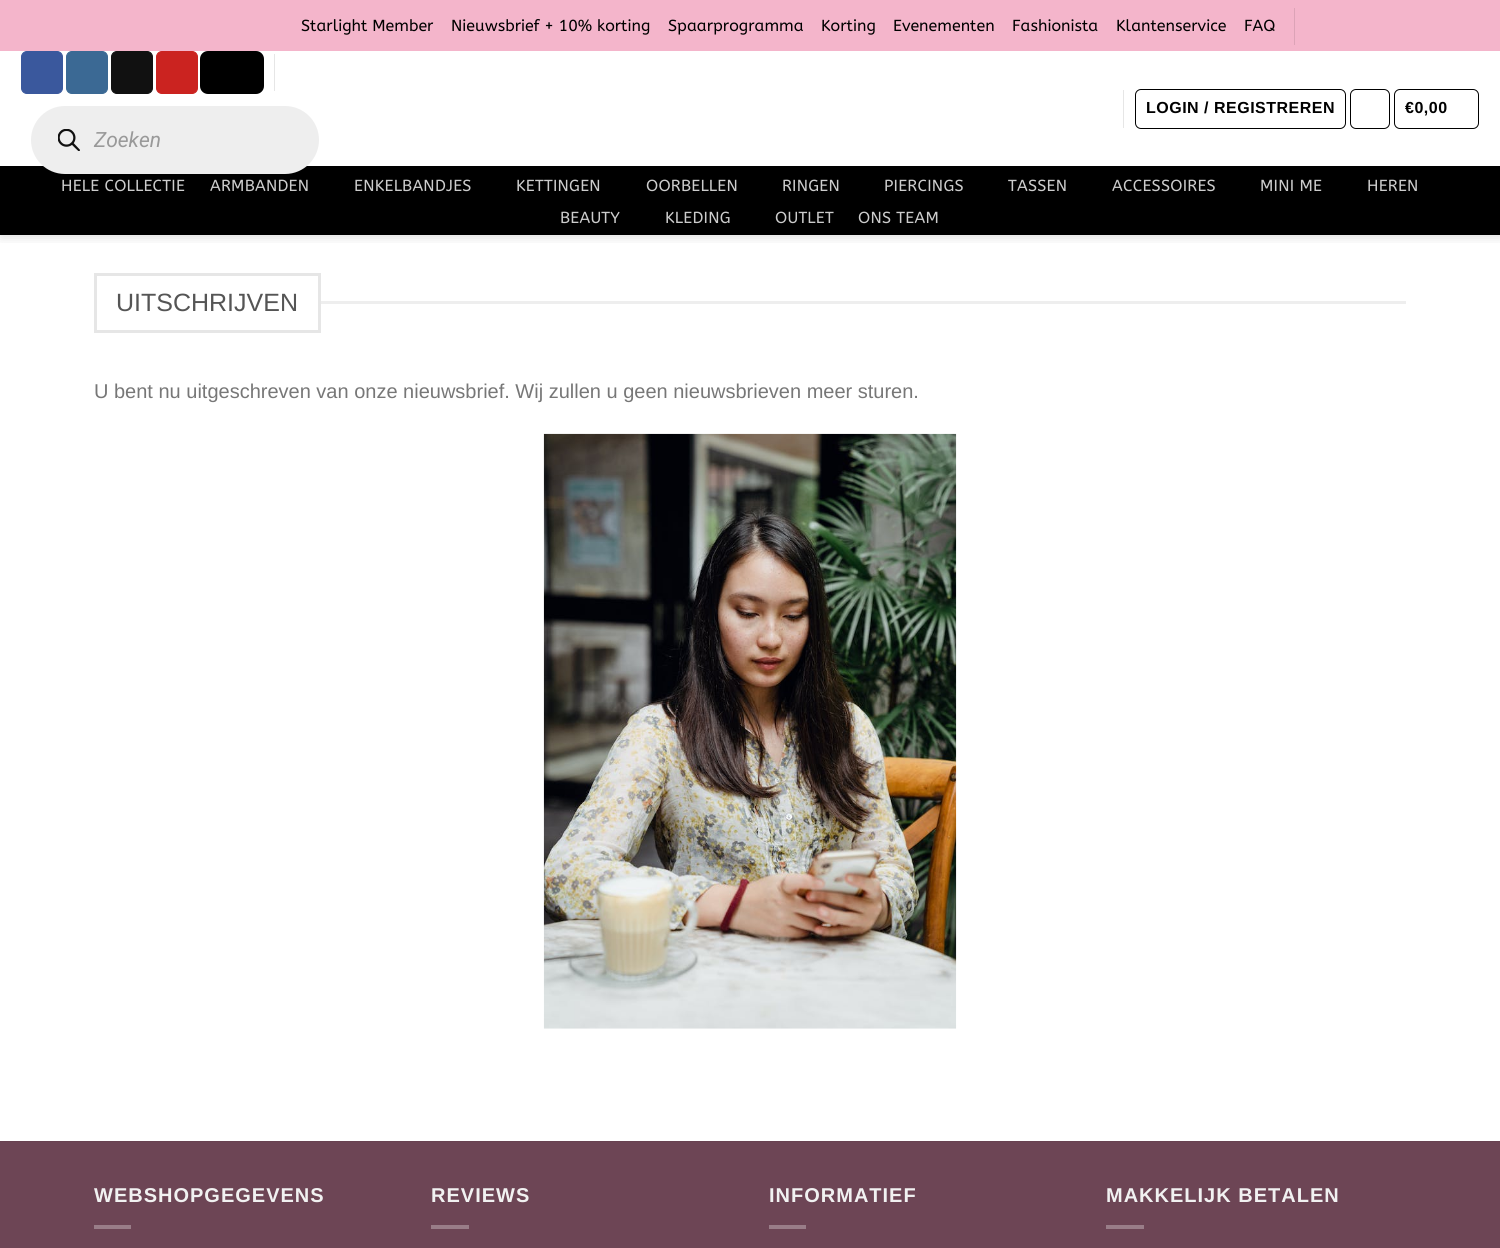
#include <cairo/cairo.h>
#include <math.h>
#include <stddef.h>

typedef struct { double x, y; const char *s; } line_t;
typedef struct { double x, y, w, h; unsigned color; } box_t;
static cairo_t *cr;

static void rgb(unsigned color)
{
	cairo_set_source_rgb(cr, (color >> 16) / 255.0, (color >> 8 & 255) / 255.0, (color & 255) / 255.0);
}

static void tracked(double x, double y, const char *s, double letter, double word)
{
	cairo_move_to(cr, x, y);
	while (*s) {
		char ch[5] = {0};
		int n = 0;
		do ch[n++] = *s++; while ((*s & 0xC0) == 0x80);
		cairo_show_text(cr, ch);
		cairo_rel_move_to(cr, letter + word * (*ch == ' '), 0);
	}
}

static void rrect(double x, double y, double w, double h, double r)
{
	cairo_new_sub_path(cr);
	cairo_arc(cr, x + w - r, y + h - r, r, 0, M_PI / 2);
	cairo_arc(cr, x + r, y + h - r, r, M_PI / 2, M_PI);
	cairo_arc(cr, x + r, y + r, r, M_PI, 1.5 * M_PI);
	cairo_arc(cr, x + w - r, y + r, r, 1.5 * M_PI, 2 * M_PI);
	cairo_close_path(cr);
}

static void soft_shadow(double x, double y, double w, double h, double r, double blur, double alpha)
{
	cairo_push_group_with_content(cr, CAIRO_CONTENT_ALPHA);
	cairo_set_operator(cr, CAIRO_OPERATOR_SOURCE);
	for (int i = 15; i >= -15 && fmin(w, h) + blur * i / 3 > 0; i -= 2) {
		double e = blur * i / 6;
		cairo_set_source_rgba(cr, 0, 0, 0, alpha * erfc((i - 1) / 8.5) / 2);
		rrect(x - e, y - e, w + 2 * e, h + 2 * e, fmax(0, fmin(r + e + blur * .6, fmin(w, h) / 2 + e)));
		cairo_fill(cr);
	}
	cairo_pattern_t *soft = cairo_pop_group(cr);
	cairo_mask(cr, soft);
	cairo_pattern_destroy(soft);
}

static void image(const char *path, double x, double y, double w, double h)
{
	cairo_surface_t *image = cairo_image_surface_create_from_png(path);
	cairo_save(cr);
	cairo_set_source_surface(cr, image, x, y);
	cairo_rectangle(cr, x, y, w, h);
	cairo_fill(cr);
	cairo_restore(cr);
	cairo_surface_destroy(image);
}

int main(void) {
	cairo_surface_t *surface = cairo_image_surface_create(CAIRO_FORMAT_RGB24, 1500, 1248);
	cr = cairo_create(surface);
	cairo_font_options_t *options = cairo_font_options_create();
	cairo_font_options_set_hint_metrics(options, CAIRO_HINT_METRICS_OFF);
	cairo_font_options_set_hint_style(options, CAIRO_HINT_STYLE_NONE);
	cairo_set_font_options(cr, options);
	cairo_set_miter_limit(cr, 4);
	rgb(0xffffff);
	cairo_paint(cr);
	cairo_save(cr);
	cairo_rectangle(cr, 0, 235, 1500, 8);
	cairo_clip(cr);
	rgb(0x000000);
	soft_shadow(1, 1, 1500, 235, 0, 6, 0.15);
	cairo_restore(cr);
	{
		static const box_t items[] = {
			{0, 0, 1500, 51, 0xf4b5cb},
			{1294, 8, 1, 37, 0xdca3b7},
			{1123, 90, 1, 38, 0xe6e6e6},
		};
		for (size_t i = 0; i < sizeof items / sizeof *items; i++) {
			rgb(items[i].color);
			cairo_rectangle(cr, items[i].x, items[i].y, items[i].w, items[i].h);
			cairo_fill(cr);
		}
	}
	rrect(1135.5, 89.5, 210, 39, 5.5);
	rgb(0x000000);
	cairo_set_line_width(cr, 1);
	cairo_stroke(cr);
	rrect(1350.5, 89.5, 39, 39, 5.5);
	cairo_stroke(cr);
	rrect(1394.5, 89.5, 84, 39, 5.5);
	cairo_stroke(cr);
	rgb(0x3a589d);
	rrect(21.5, 51.5, 41, 42, 5.5);
	cairo_fill_preserve(cr);
	cairo_stroke(cr);
	rgb(0x3b6994);
	rrect(66.5, 51.5, 41, 42, 5.5);
	cairo_fill_preserve(cr);
	cairo_stroke(cr);
	rgb(0x111111);
	rrect(111.5, 51.5, 41, 42, 5.5);
	cairo_fill_preserve(cr);
	cairo_stroke(cr);
	rgb(0xcb2320);
	rrect(156.5, 51.5, 41, 42, 5.5);
	cairo_fill_preserve(cr);
	cairo_stroke(cr);
	rgb(0x000000);
	rrect(200, 51, 64, 43, 8);
	cairo_fill(cr);
	rgb(0xe6e6e6);
	cairo_rectangle(cr, 274, 54, 1, 37);
	cairo_fill(cr);
	rgb(0x000000);
	cairo_rectangle(cr, 0, 166, 1500, 69);
	cairo_fill(cr);
	rgb(0xeeeeee);
	rrect(31, 106, 288, 68, 34);
	cairo_fill(cr);
	image("img/1.png", 58, 129, 22, 22);
	cairo_rectangle(cr, 95.5, 274.5, 224, 57);
	rgb(0xe6e6e6);
	cairo_set_line_width(cr, 3);
	cairo_stroke(cr);
	rgb(0xeeeeee);
	cairo_rectangle(cr, 321, 301, 1085, 3);
	cairo_fill(cr);
	image("img/2.png", 543, 433, 414, 596);
	{
		static const box_t items[] = {
			{0, 1142, 1500, 106, 0x6d4555},
			{0, 1141, 1500, 1, 0x684251},
			{94, 1225, 37, 4, 0x997d88},
			{431, 1225, 38, 4, 0x997d88},
			{769, 1225, 37, 4, 0x997d88},
			{1106, 1225, 38, 4, 0x997d88},
		};
		for (size_t i = 0; i < sizeof items / sizeof *items; i++) {
			rgb(items[i].color);
			cairo_rectangle(cr, items[i].x, items[i].y, items[i].w, items[i].h);
			cairo_fill(cr);
		}
	}
	cairo_select_font_face(cr, "ABeeZee", CAIRO_FONT_SLANT_NORMAL, CAIRO_FONT_WEIGHT_NORMAL);
	cairo_set_font_size(cr, 16);
	rgb(0x000000);
	{
		static const line_t items[] = {
			{301, 31, "Starlight Member"},
			{451, 31, "Nieuwsbrief + 10% korting"},
			{668, 31, "Spaarprogramma"},
			{821, 31, "Korting"},
			{893, 31, "Evenementen"},
			{1012, 31, "Fashionista"},
			{1116, 31, "Klantenservice"},
			{1244, 31, "FAQ"},
		};
		for (size_t i = 0; i < sizeof items / sizeof *items; i++) {
			cairo_move_to(cr, items[i].x, items[i].y);
			cairo_show_text(cr, items[i].s);
		}
	}
	cairo_select_font_face(cr, "Liberation Sans", CAIRO_FONT_SLANT_NORMAL, CAIRO_FONT_WEIGHT_BOLD);
	tracked(1146, 113, "LOGIN / REGISTREREN", 0.5, 0);
	tracked(1405, 113, "€0,00", 0.5, 0);
	cairo_select_font_face(cr, "Roboto", CAIRO_FONT_SLANT_ITALIC, CAIRO_FONT_WEIGHT_NORMAL);
	cairo_set_font_size(cr, 21);
	rgb(0x999999);
	cairo_move_to(cr, 94, 147);
	cairo_show_text(cr, "Zoeken");
	cairo_select_font_face(cr, "ABeeZee", CAIRO_FONT_SLANT_NORMAL, CAIRO_FONT_WEIGHT_NORMAL);
	cairo_set_font_size(cr, 16);
	rgb(0xcccccc);
	{
		static const line_t items[] = {
			{61, 191, "HELE COLLECTIE"},
			{210, 191, "ARMBANDEN"},
			{354, 191, "ENKELBANDJES"},
			{516, 191, "KETTINGEN"},
			{646, 191, "OORBELLEN"},
			{782, 191, "RINGEN"},
			{884, 191, "PIERCINGS"},
			{1008, 191, "TASSEN"},
			{1112, 191, "ACCESSOIRES"},
			{1260, 191, "MINI ME"},
			{1367, 191, "HEREN"},
			{560, 223, "BEAUTY"},
			{665, 223, "KLEDING"},
			{775, 223, "OUTLET"},
			{858, 223, "ONS TEAM"},
		};
		for (size_t i = 0; i < sizeof items / sizeof *items; i++) {
			tracked(items[i].x, items[i].y, items[i].s, 0.25, 0);
		}
	}
	cairo_select_font_face(cr, "Liberation Sans", CAIRO_FONT_SLANT_NORMAL, CAIRO_FONT_WEIGHT_NORMAL);
	cairo_set_font_size(cr, 25);
	rgb(0x555555);
	cairo_move_to(cr, 116, 311);
	cairo_show_text(cr, "UITSCHRIJVEN");
	cairo_set_font_size(cr, 20);
	rgb(0x777777);
	cairo_move_to(cr, 94, 398);
	cairo_show_text(cr, "U bent nu uitgeschreven van onze nieuwsbrief. Wij zullen u geen nieuwsbrieven meer sturen.");
	cairo_select_font_face(cr, "Liberation Sans", CAIRO_FONT_SLANT_NORMAL, CAIRO_FONT_WEIGHT_BOLD);
	rgb(0xf1f1f1);
	{
		static const line_t items[] = {
			{94, 1202, "WEBSHOPGEGEVENS"},
			{431, 1202, "REVIEWS"},
			{769, 1202, "INFORMATIEF"},
			{1106, 1202, "MAKKELIJK BETALEN"},
		};
		for (size_t i = 0; i < sizeof items / sizeof *items; i++) {
			tracked(items[i].x, items[i].y, items[i].s, 1, 0);
		}
	}
	cairo_surface_write_to_png(surface, "page.png");
	cairo_font_options_destroy(options);
	cairo_destroy(cr);
	cairo_surface_destroy(surface);
	return 0;
}
